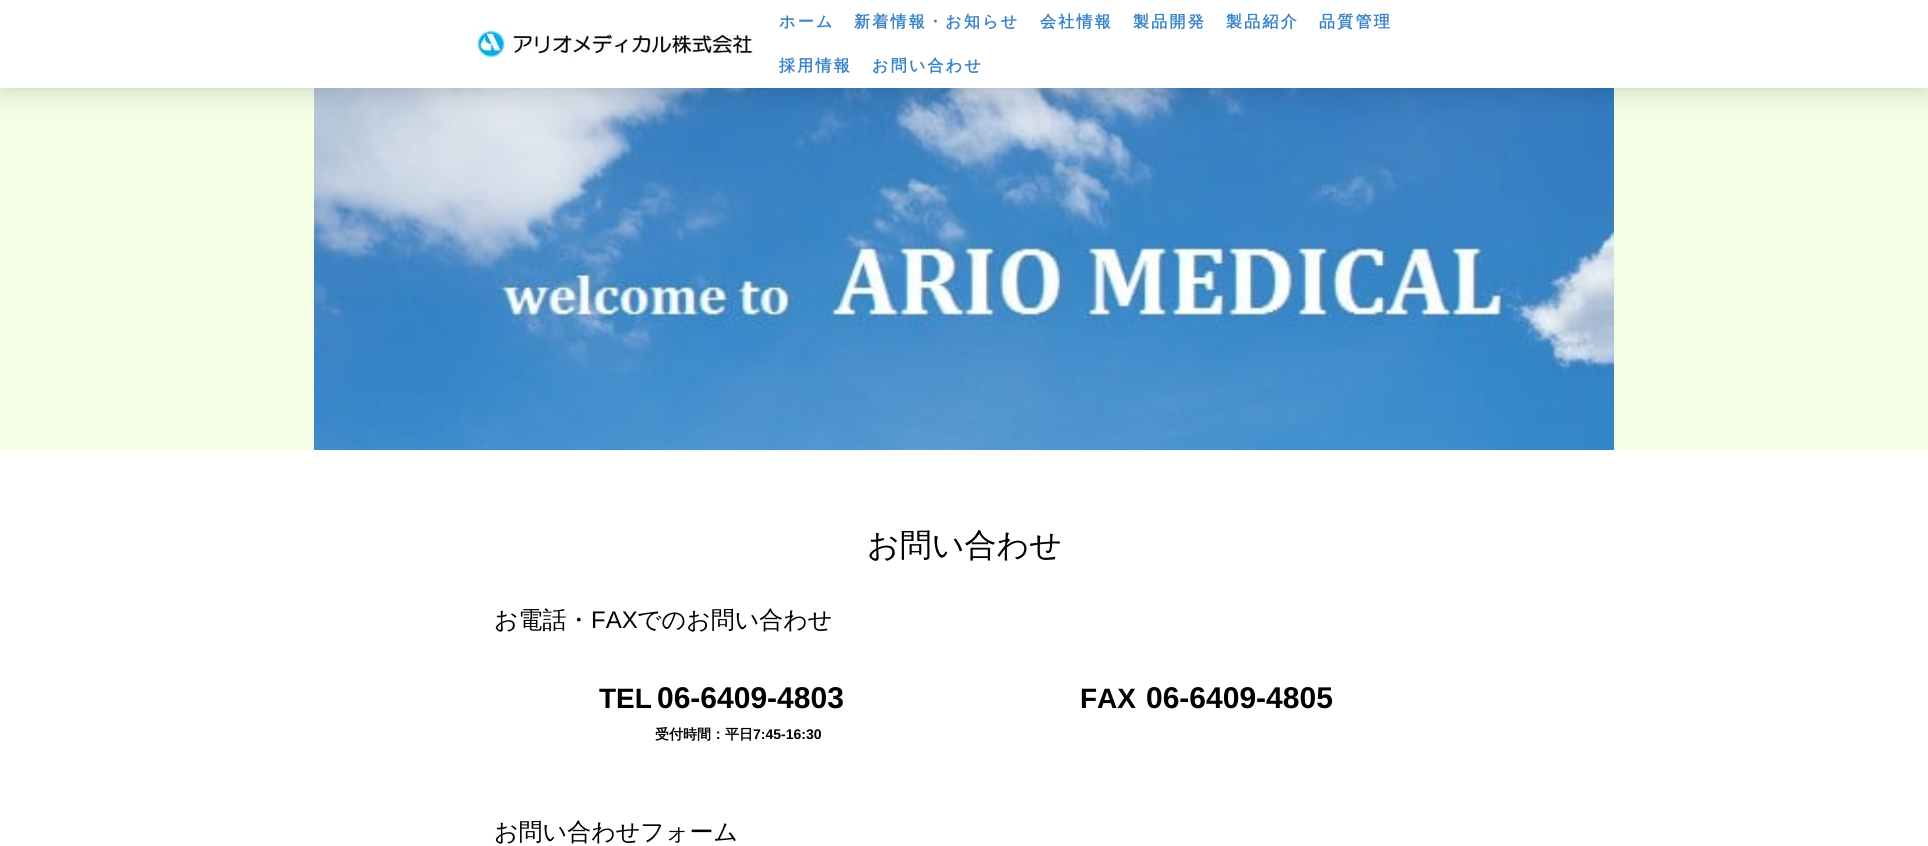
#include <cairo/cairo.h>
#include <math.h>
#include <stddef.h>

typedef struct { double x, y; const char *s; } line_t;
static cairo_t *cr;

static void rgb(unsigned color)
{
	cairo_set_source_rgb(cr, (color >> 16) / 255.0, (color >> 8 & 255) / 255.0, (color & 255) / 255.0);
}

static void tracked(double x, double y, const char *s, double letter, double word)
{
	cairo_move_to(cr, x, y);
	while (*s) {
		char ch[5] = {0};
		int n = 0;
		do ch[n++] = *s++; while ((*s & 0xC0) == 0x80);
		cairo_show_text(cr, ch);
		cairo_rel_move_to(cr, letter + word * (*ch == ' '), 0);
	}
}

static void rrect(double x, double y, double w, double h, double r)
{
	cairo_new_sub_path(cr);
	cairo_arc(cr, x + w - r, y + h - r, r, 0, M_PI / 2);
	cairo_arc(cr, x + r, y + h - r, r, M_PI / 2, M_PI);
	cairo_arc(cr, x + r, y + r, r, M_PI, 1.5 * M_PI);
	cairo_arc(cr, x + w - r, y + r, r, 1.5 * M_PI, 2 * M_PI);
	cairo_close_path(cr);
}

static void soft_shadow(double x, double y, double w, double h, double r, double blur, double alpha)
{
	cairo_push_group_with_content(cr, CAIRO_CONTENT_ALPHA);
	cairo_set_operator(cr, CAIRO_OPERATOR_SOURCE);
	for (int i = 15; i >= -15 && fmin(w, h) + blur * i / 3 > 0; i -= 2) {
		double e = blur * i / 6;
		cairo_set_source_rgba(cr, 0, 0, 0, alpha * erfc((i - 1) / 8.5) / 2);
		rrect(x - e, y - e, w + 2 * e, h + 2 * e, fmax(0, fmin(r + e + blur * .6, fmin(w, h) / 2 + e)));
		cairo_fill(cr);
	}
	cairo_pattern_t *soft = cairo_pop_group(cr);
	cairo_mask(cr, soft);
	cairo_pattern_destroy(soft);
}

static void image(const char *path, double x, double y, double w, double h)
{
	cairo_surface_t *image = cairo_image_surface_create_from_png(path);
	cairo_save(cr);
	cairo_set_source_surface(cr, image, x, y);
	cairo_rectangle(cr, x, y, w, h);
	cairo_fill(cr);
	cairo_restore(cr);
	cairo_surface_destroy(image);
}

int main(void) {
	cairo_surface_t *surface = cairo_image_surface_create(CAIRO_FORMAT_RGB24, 1928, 846);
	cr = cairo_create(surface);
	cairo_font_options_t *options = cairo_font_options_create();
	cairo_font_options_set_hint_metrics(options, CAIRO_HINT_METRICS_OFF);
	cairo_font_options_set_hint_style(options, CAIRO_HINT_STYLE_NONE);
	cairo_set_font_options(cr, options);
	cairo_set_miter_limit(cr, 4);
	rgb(0xffffff);
	cairo_paint(cr);
	rgb(0xf5ffe6);
	cairo_rectangle(cr, 0, 88, 1928, 362);
	cairo_fill(cr);
	image("img/2.png", 314, 88, 1300, 362);
	rgb(0x000000);
	soft_shadow(0, 0, 1928, 88, 0, 15, 0.2);
	rgb(0xffffff);
	cairo_rectangle(cr, 0, 0, 1928, 88);
	cairo_fill(cr);
	image("img/1.png", 474, 26, 280, 33);
	cairo_select_font_face(cr, "WenQuanYi Zen Hei", CAIRO_FONT_SLANT_NORMAL, CAIRO_FONT_WEIGHT_BOLD);
	cairo_set_font_size(cr, 16);
	rgb(0x3984c8);
	{
		static const line_t items[] = {
			{779, 27, "ホーム"},
			{854, 27, "新着情報・お知らせ"},
			{1040, 27, "会社情報"},
			{1133, 27, "製品開発"},
			{1226, 27, "製品紹介"},
			{1319, 27, "品質管理"},
			{779, 71, "採用情報"},
			{872, 71, "お問い合わせ"},
		};
		for (size_t i = 0; i < sizeof items / sizeof *items; i++) {
			tracked(items[i].x, items[i].y, items[i].s, 2.25, 0);
		}
	}
	cairo_select_font_face(cr, "WenQuanYi Zen Hei Medium", CAIRO_FONT_SLANT_NORMAL, CAIRO_FONT_WEIGHT_NORMAL);
	cairo_set_font_size(cr, 32);
	rgb(0x000000);
	cairo_move_to(cr, 867, 556);
	cairo_show_text(cr, "お問い合わせ");
	cairo_set_font_size(cr, 24);
	cairo_move_to(cr, 494, 628);
	cairo_show_text(cr, "お電話・");
	cairo_select_font_face(cr, "Liberation Sans", CAIRO_FONT_SLANT_NORMAL, CAIRO_FONT_WEIGHT_NORMAL);
	cairo_move_to(cr, 591, 628);
	cairo_show_text(cr, "FAX");
	cairo_select_font_face(cr, "WenQuanYi Zen Hei Medium", CAIRO_FONT_SLANT_NORMAL, CAIRO_FONT_WEIGHT_NORMAL);
	cairo_move_to(cr, 637, 628);
	cairo_show_text(cr, "でのお問い合わせ");
	cairo_select_font_face(cr, "Liberation Sans", CAIRO_FONT_SLANT_NORMAL, CAIRO_FONT_WEIGHT_BOLD);
	cairo_set_font_size(cr, 28);
	cairo_move_to(cr, 599, 708);
	cairo_show_text(cr, "TEL");
	cairo_set_font_size(cr, 30);
	cairo_move_to(cr, 657, 708);
	cairo_show_text(cr, "06-6409-4803");
	cairo_select_font_face(cr, "WenQuanYi Zen Hei", CAIRO_FONT_SLANT_NORMAL, CAIRO_FONT_WEIGHT_BOLD);
	cairo_set_font_size(cr, 14);
	cairo_move_to(cr, 655, 739);
	cairo_show_text(cr, "受付時間：平日");
	cairo_select_font_face(cr, "Liberation Sans", CAIRO_FONT_SLANT_NORMAL, CAIRO_FONT_WEIGHT_BOLD);
	cairo_move_to(cr, 753, 739);
	cairo_show_text(cr, "7:45-16:30");
	cairo_set_font_size(cr, 28);
	cairo_move_to(cr, 1080, 708);
	cairo_show_text(cr, "FAX");
	cairo_set_font_size(cr, 30);
	cairo_move_to(cr, 1146, 708);
	cairo_show_text(cr, "06-6409-4805");
	cairo_select_font_face(cr, "WenQuanYi Zen Hei Medium", CAIRO_FONT_SLANT_NORMAL, CAIRO_FONT_WEIGHT_NORMAL);
	cairo_set_font_size(cr, 24);
	cairo_move_to(cr, 494, 840);
	cairo_show_text(cr, "お問い合わせフォーム");
	cairo_surface_write_to_png(surface, "page.png");
	cairo_font_options_destroy(options);
	cairo_destroy(cr);
	cairo_surface_destroy(surface);
	return 0;
}
